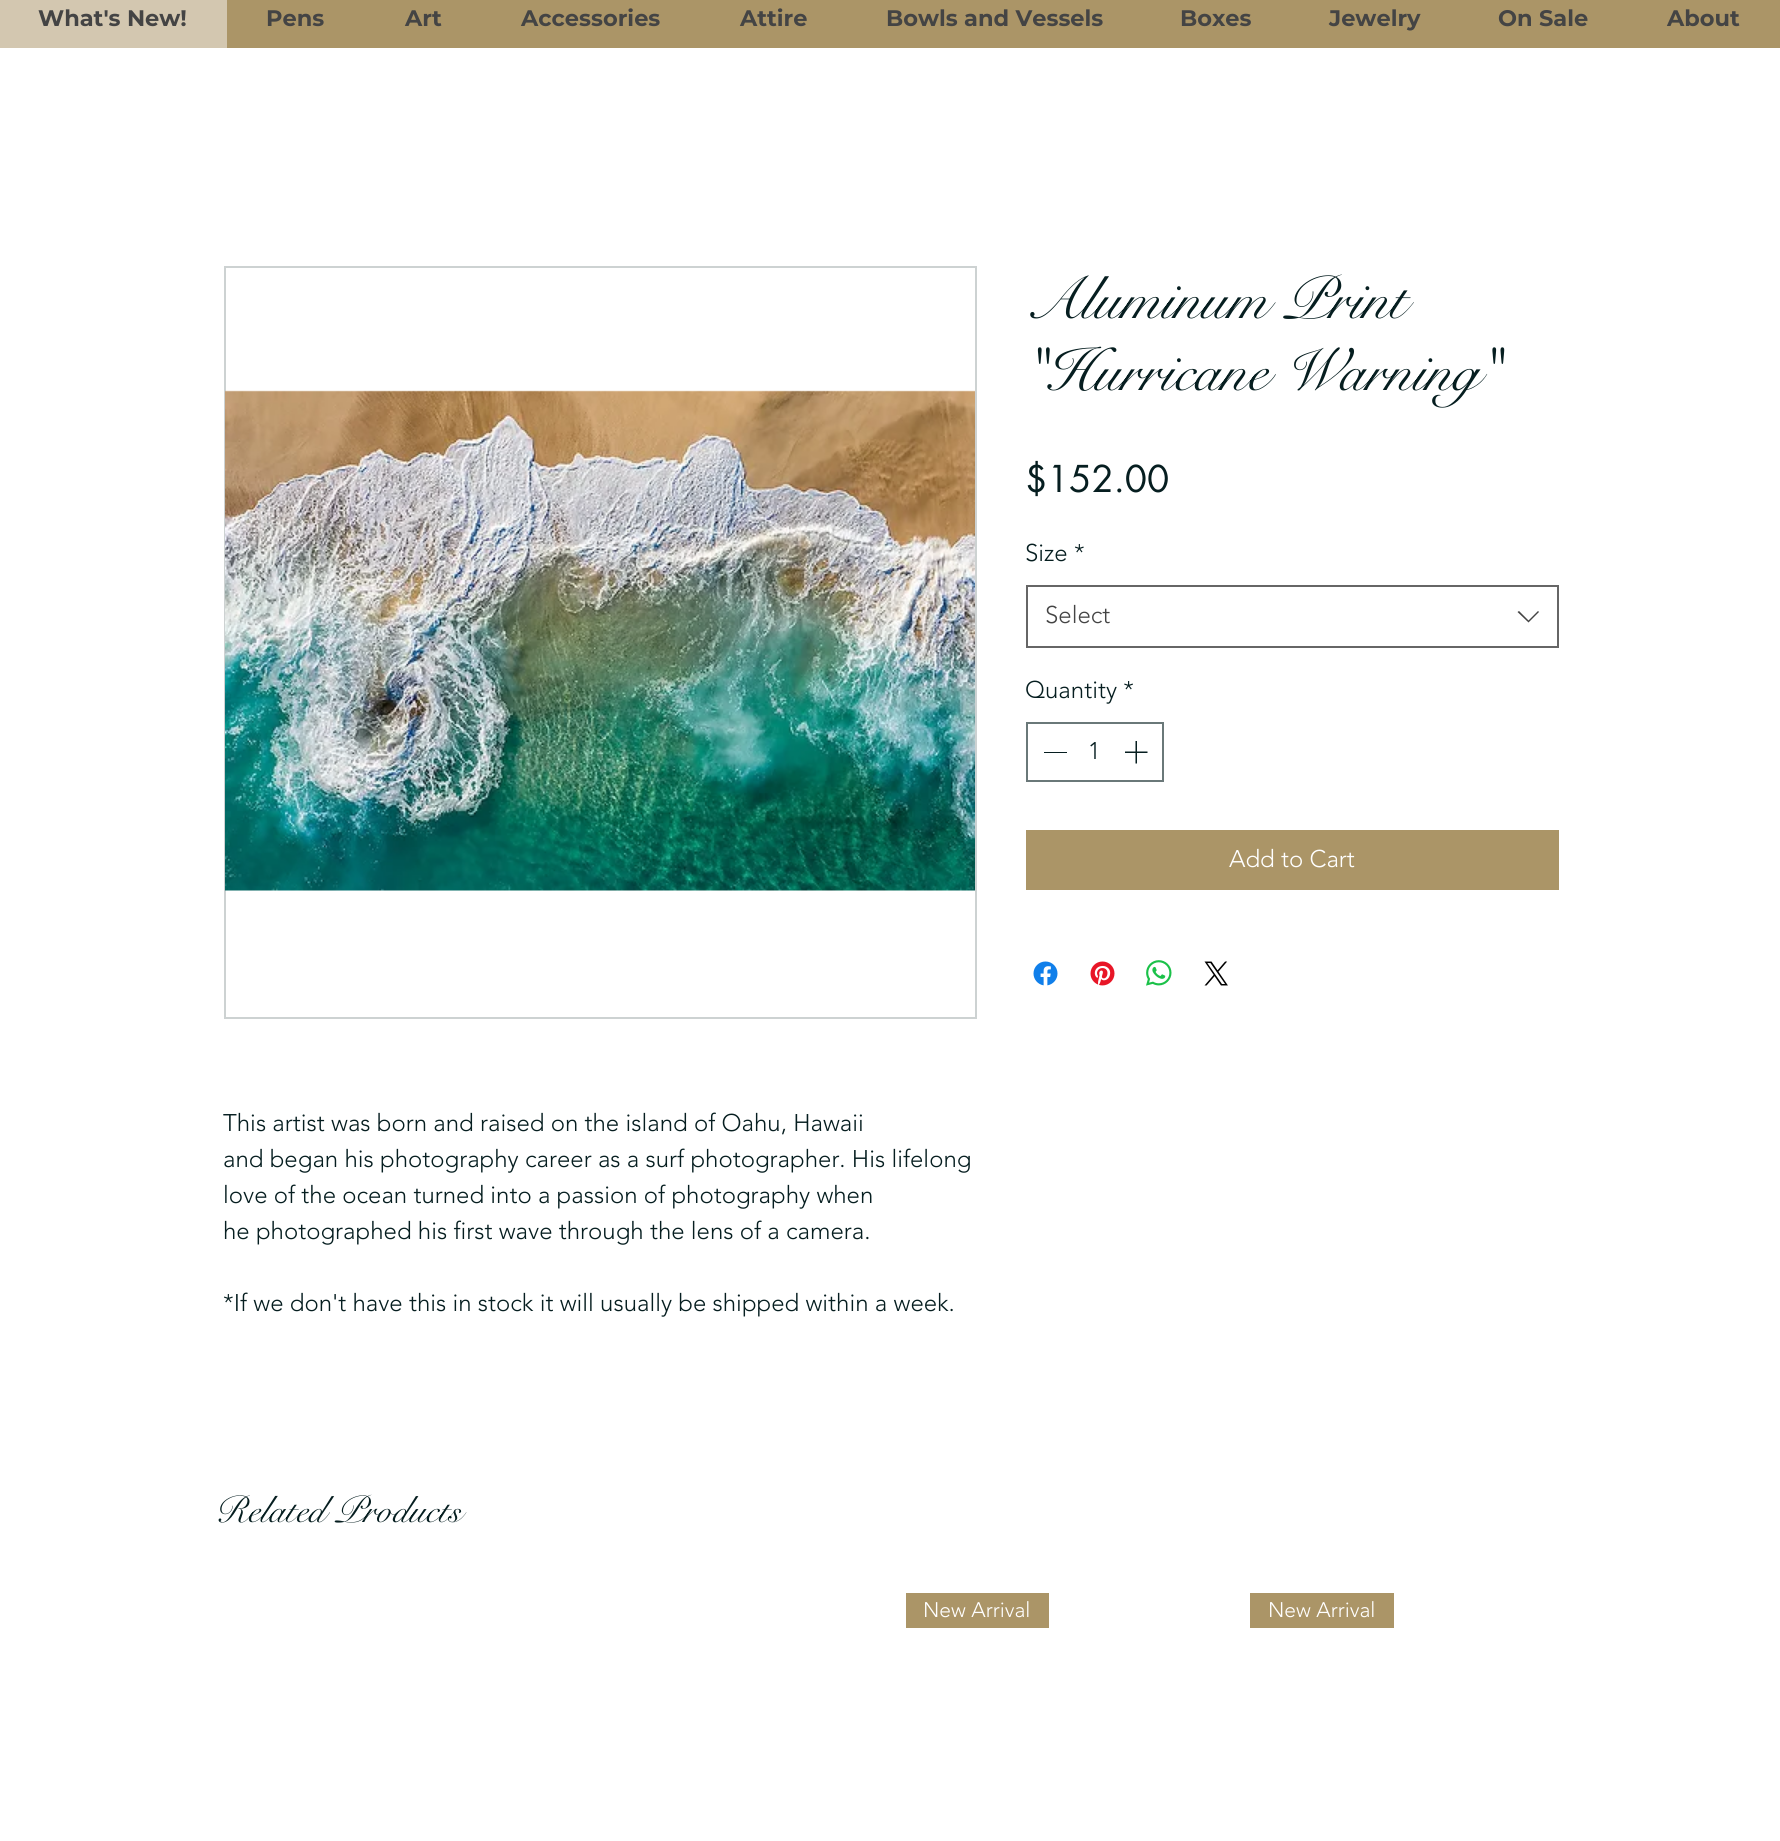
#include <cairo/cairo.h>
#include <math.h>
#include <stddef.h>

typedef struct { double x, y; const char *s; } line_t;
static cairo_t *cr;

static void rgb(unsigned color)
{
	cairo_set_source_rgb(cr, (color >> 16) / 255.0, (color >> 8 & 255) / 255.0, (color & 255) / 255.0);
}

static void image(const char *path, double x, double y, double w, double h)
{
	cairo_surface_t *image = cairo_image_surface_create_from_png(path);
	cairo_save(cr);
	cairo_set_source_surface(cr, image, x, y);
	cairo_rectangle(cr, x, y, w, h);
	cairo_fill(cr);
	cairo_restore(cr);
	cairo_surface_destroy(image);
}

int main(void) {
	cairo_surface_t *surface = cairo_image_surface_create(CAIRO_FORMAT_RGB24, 1780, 1841);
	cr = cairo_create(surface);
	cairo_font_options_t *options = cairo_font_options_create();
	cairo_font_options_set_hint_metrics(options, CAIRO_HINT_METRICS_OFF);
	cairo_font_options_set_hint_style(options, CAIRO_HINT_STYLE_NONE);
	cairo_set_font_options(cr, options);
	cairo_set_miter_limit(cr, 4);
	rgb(0xffffff);
	cairo_paint(cr);
	rgb(0xab9567);
	cairo_rectangle(cr, 227, 0, 1553, 48);
	cairo_fill(cr);
	rgb(0xd3c7b0);
	cairo_rectangle(cr, 0, 0, 227, 48);
	cairo_fill(cr);
	cairo_rectangle(cr, 1027, 586, 531, 61);
	rgb(0x666666);
	cairo_stroke(cr);
	rgb(0x444444);
	cairo_set_fill_rule(cr, CAIRO_FILL_RULE_EVEN_ODD);
	cairo_new_path(cr);
	cairo_move_to(cr, 1538, 611);
	cairo_line_to(cr, 1539, 612);
	cairo_line_to(cr, 1528.5, 622.5);
	cairo_line_to(cr, 1517.5, 612);
	cairo_line_to(cr, 1519, 611);
	cairo_line_to(cr, 1528.5, 620.5);
	cairo_close_path(cr);
	cairo_fill(cr);
	cairo_rectangle(cr, 1027, 723, 136, 58);
	rgb(0x6a7879);
	cairo_stroke(cr);
	rgb(0x061e20);
	cairo_rectangle(cr, 1044, 752, 23, 1);
	cairo_fill(cr);
	image("img/1.png", 1125, 741, 23, 23);
	rgb(0xab9567);
	cairo_rectangle(cr, 1026, 830, 533, 60);
	cairo_fill(cr);
	image("img/2.png", 1033, 961, 25, 25);
	image("img/3.png", 1090, 961, 25, 25);
	image("img/4.png", 1146, 960, 26, 26);
	image("img/5.png", 1204, 961, 24, 25);
	cairo_rectangle(cr, 225, 267, 751, 751);
	rgb(0xcdd2d2);
	cairo_stroke(cr);
	image("img/6.png", 225, 390, 750, 501);
	rgb(0xab9567);
	cairo_rectangle(cr, 906, 1593, 143, 35);
	cairo_fill(cr);
	cairo_rectangle(cr, 1250, 1593, 144, 35);
	cairo_fill(cr);
	cairo_select_font_face(cr, "Montserrat", CAIRO_FONT_SLANT_NORMAL, CAIRO_FONT_WEIGHT_BOLD);
	cairo_set_font_size(cr, 22.5);
	rgb(0x444444);
	{
		static const line_t items[] = {
			{38, 26, "What's New!"},
			{266, 26, "Pens"},
			{405, 26, "Art"},
			{521, 26, "Accessories"},
			{740, 26, "Attire"},
			{886, 26, "Bowls and Vessels"},
			{1180, 26, "Boxes"},
			{1329, 26, "Jewelry"},
			{1498, 26, "On Sale"},
			{1667, 26, "About"},
		};
		for (size_t i = 0; i < sizeof items / sizeof *items; i++) {
			cairo_move_to(cr, items[i].x, items[i].y);
			cairo_show_text(cr, items[i].s);
		}
	}
	cairo_select_font_face(cr, "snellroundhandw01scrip", CAIRO_FONT_SLANT_NORMAL, CAIRO_FONT_WEIGHT_NORMAL);
	cairo_set_font_size(cr, 60);
	rgb(0x061e20);
	cairo_move_to(cr, 1025, 318);
	cairo_show_text(cr, "Aluminum Print");
	cairo_move_to(cr, 1025, 390);
	cairo_show_text(cr, "\"Hurricane Warning\"");
	cairo_select_font_face(cr, "futura", CAIRO_FONT_SLANT_NORMAL, CAIRO_FONT_WEIGHT_NORMAL);
	cairo_set_font_size(cr, 36);
	cairo_move_to(cr, 1025, 492);
	cairo_show_text(cr, "$152.00");
	cairo_select_font_face(cr, "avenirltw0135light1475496 Light", CAIRO_FONT_SLANT_NORMAL, CAIRO_FONT_WEIGHT_NORMAL);
	cairo_set_font_size(cr, 24);
	cairo_move_to(cr, 1025, 561);
	cairo_show_text(cr, "Size *");
	rgb(0x444444);
	cairo_move_to(cr, 1045, 623);
	cairo_show_text(cr, "Select");
	rgb(0x061e20);
	cairo_move_to(cr, 1025, 698);
	cairo_show_text(cr, "Quantity *");
	cairo_move_to(cr, 1088, 759);
	cairo_show_text(cr, "1");
	rgb(0xffffff);
	cairo_move_to(cr, 1229, 867);
	cairo_show_text(cr, "Add to Cart");
	rgb(0x061e20);
	{
		static const line_t items[] = {
			{223, 1131, "This artist was born and raised on the island of Oahu, Hawaii"},
			{223, 1167, "and began his photography career as a surf photographer. His lifelong"},
			{223, 1203, "love of the ocean turned into a passion of photography when"},
			{223, 1239, "he photographed his first wave through the lens of a camera."},
			{223, 1311, "*If we don't have this in stock it will usually be shipped within a week."},
		};
		for (size_t i = 0; i < sizeof items / sizeof *items; i++) {
			cairo_move_to(cr, items[i].x, items[i].y);
			cairo_show_text(cr, items[i].s);
		}
	}
	cairo_select_font_face(cr, "snellroundhandw01scrip", CAIRO_FONT_SLANT_NORMAL, CAIRO_FONT_WEIGHT_NORMAL);
	cairo_set_font_size(cr, 37.5);
	cairo_move_to(cr, 215, 1522);
	cairo_show_text(cr, "Related Products");
	cairo_select_font_face(cr, "avenirltw0135light1475496 Light", CAIRO_FONT_SLANT_NORMAL, CAIRO_FONT_WEIGHT_NORMAL);
	cairo_set_font_size(cr, 21);
	rgb(0xffffff);
	cairo_move_to(cr, 923, 1617);
	cairo_show_text(cr, "New Arrival");
	cairo_move_to(cr, 1268, 1617);
	cairo_show_text(cr, "New Arrival");
	cairo_surface_write_to_png(surface, "page.png");
	cairo_font_options_destroy(options);
	cairo_destroy(cr);
	cairo_surface_destroy(surface);
	return 0;
}
